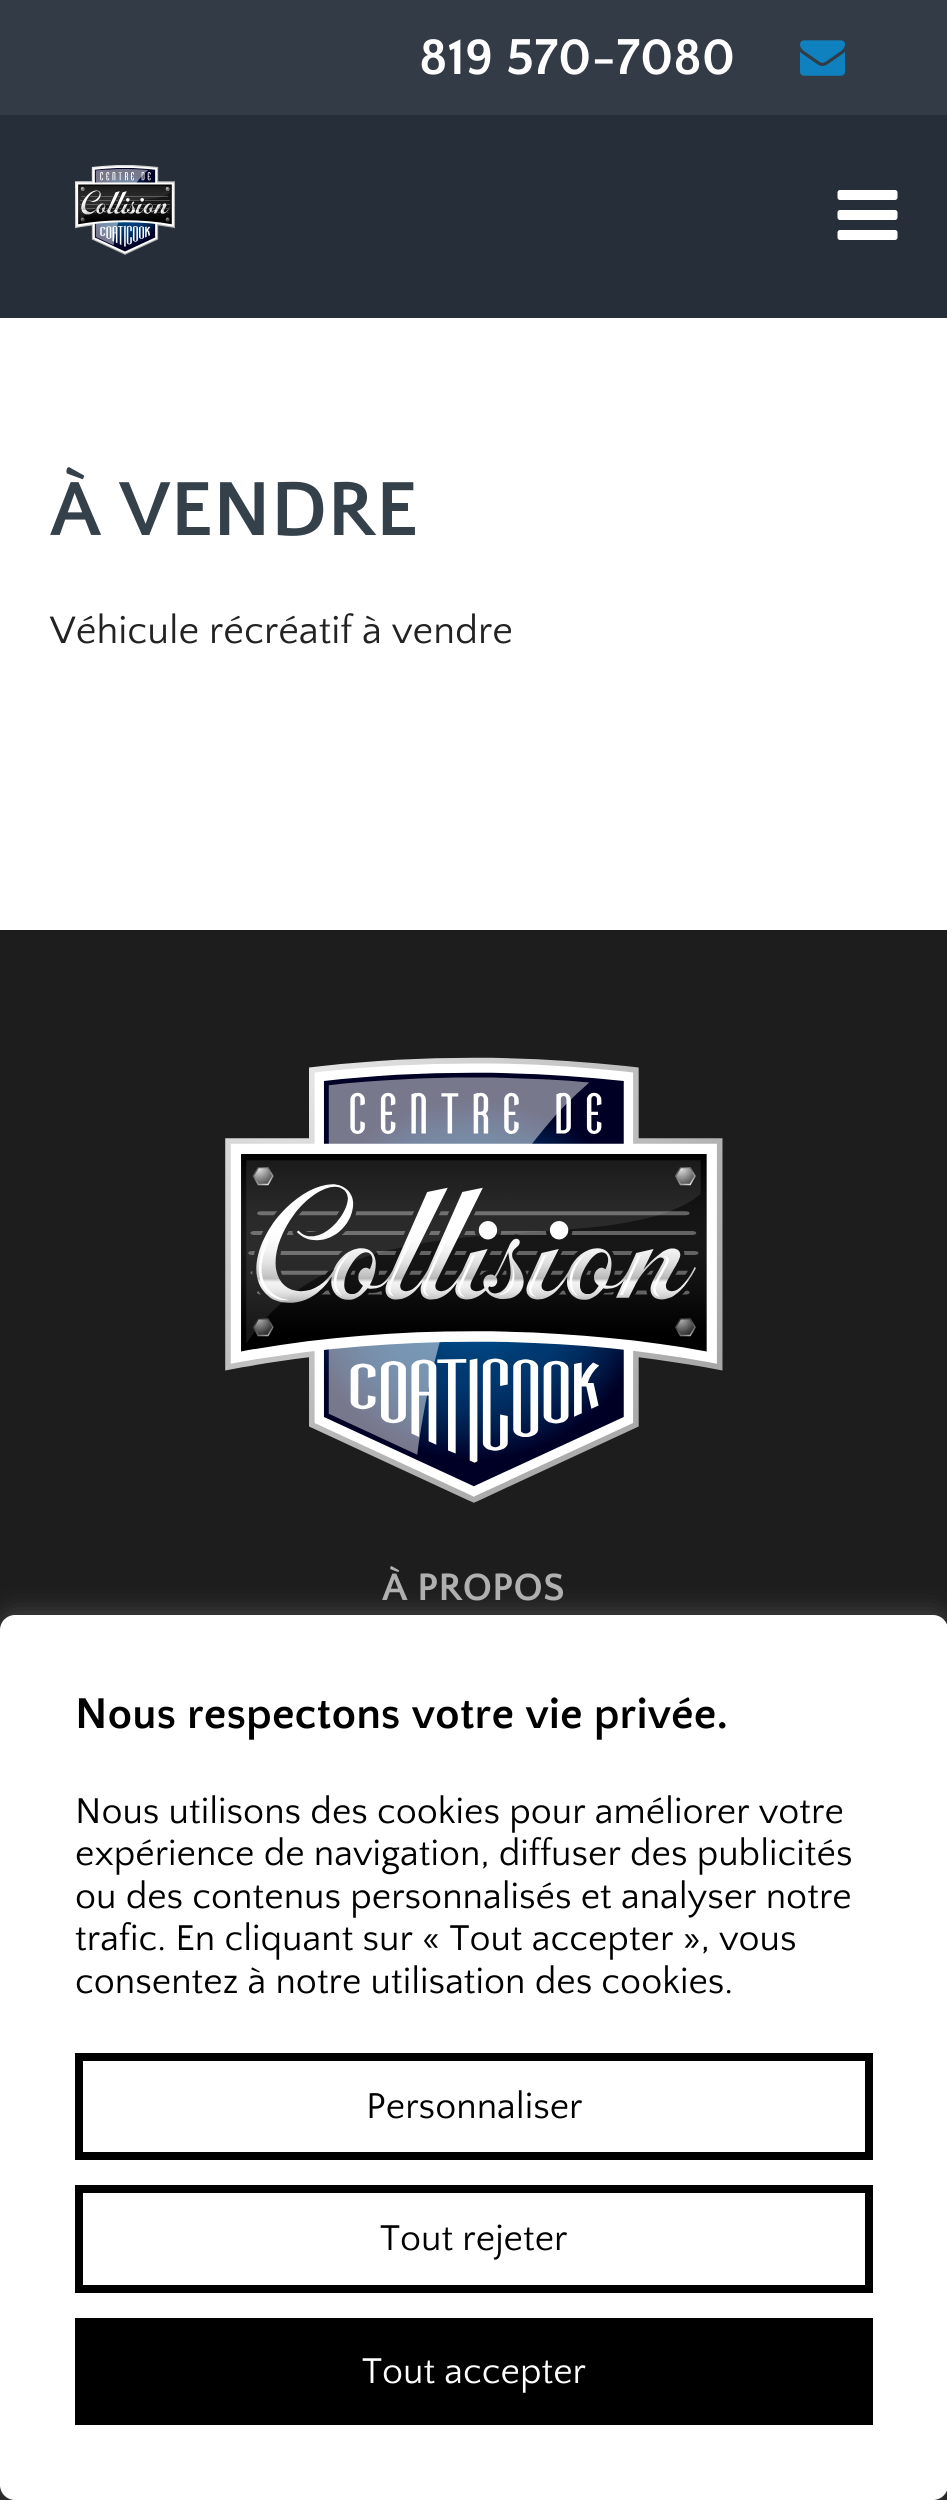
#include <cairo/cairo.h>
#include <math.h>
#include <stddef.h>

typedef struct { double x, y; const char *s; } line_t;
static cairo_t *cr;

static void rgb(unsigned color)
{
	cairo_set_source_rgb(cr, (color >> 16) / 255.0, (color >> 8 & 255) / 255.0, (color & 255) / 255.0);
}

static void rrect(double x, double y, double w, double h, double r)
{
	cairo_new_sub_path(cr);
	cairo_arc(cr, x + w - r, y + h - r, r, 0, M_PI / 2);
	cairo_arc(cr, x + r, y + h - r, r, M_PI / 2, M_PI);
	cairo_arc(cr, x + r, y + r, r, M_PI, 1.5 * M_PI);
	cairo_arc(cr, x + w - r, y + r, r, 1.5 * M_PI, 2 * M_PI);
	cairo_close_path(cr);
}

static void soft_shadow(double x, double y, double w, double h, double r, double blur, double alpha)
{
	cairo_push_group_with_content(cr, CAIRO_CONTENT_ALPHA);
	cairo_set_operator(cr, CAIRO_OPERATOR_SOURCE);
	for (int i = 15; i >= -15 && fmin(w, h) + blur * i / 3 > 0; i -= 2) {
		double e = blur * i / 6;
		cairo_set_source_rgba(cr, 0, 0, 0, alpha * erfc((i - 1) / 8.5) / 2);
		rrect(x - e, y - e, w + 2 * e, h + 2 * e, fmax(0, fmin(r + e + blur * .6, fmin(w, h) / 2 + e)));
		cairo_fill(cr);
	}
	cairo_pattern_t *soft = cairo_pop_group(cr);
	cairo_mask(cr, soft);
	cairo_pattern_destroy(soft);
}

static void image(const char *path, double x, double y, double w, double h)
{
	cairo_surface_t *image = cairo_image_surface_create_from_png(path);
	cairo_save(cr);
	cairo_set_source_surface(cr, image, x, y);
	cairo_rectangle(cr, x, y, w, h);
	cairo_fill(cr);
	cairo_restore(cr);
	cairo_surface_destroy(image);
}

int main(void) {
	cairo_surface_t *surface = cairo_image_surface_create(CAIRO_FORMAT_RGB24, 947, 2500);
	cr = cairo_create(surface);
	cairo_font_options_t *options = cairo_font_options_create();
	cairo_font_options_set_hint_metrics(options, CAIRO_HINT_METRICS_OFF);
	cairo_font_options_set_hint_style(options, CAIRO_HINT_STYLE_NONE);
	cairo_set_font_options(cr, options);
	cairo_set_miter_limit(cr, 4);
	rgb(0xffffff);
	cairo_paint(cr);
	rgb(0x323b46);
	cairo_rectangle(cr, 0, 0, 947, 115);
	cairo_fill(cr);
	image("img/1.png", 800, 40, 45, 36);
	rgb(0x262f39);
	cairo_rectangle(cr, 0, 115, 947, 203);
	cairo_fill(cr);
	image("img/2.png", 75, 165, 100, 90);
	image("img/3.png", 837, 190, 61, 50);
	image("img/5.png", 0, 930, 947, 1570);
	image("img/4.png", 225, 1057, 498, 446);
	rgb(0xacabab);
	soft_shadow(0, 1613, 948, 885, 15, 12.5, 0.3);
	rgb(0xffffff);
	rrect(0, 1615, 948, 885, 15);
	cairo_fill(cr);
	cairo_rectangle(cr, 79, 2057, 790, 99);
	rgb(0x000000);
	cairo_set_line_width(cr, 8);
	cairo_stroke(cr);
	cairo_rectangle(cr, 79, 2189, 790, 100);
	cairo_stroke(cr);
	cairo_rectangle(cr, 75, 2318, 798, 107);
	cairo_fill(cr);
	cairo_select_font_face(cr, "Quattrocento Sans", CAIRO_FONT_SLANT_NORMAL, CAIRO_FONT_WEIGHT_BOLD);
	cairo_set_font_size(cr, 52.5);
	rgb(0xffffff);
	cairo_move_to(cr, 419, 74);
	cairo_show_text(cr, "819 570-7080");
	cairo_set_font_size(cr, 80);
	rgb(0x34414b);
	cairo_move_to(cr, 50, 535);
	cairo_show_text(cr, "À VENDRE");
	cairo_select_font_face(cr, "Quattrocento Sans", CAIRO_FONT_SLANT_NORMAL, CAIRO_FONT_WEIGHT_NORMAL);
	cairo_set_font_size(cr, 40);
	rgb(0x222223);
	cairo_move_to(cr, 50, 643);
	cairo_show_text(cr, "Véhicule récréatif à vendre");
	cairo_select_font_face(cr, "Quattrocento Sans", CAIRO_FONT_SLANT_NORMAL, CAIRO_FONT_WEIGHT_BOLD);
	rgb(0xb0b0b0);
	cairo_move_to(cr, 382, 1600);
	cairo_show_text(cr, "À PROPOS");
	cairo_set_font_size(cr, 45);
	rgb(0x000000);
	cairo_move_to(cr, 75, 1728);
	cairo_show_text(cr, "Nous respectons votre vie privée.");
	cairo_select_font_face(cr, "Quattrocento Sans", CAIRO_FONT_SLANT_NORMAL, CAIRO_FONT_WEIGHT_NORMAL);
	cairo_set_font_size(cr, 37.5);
	{
		static const line_t items[] = {
			{75, 1823, "Nous utilisons des cookies pour améliorer votre"},
			{75, 1865, "expérience de navigation, diffuser des publicités"},
			{75, 1908, "ou des contenus personnalisés et analyser notre"},
			{75, 1950, "trafic. En cliquant sur « Tout accepter », vous"},
			{75, 1993, "consentez à notre utilisation des cookies."},
			{366, 2118, "Personnaliser"},
			{380, 2250, "Tout rejeter"},
		};
		for (size_t i = 0; i < sizeof items / sizeof *items; i++) {
			cairo_move_to(cr, items[i].x, items[i].y);
			cairo_show_text(cr, items[i].s);
		}
	}
	rgb(0xffffff);
	cairo_move_to(cr, 362, 2383);
	cairo_show_text(cr, "Tout accepter");
	cairo_surface_write_to_png(surface, "page.png");
	cairo_font_options_destroy(options);
	cairo_destroy(cr);
	cairo_surface_destroy(surface);
	return 0;
}
